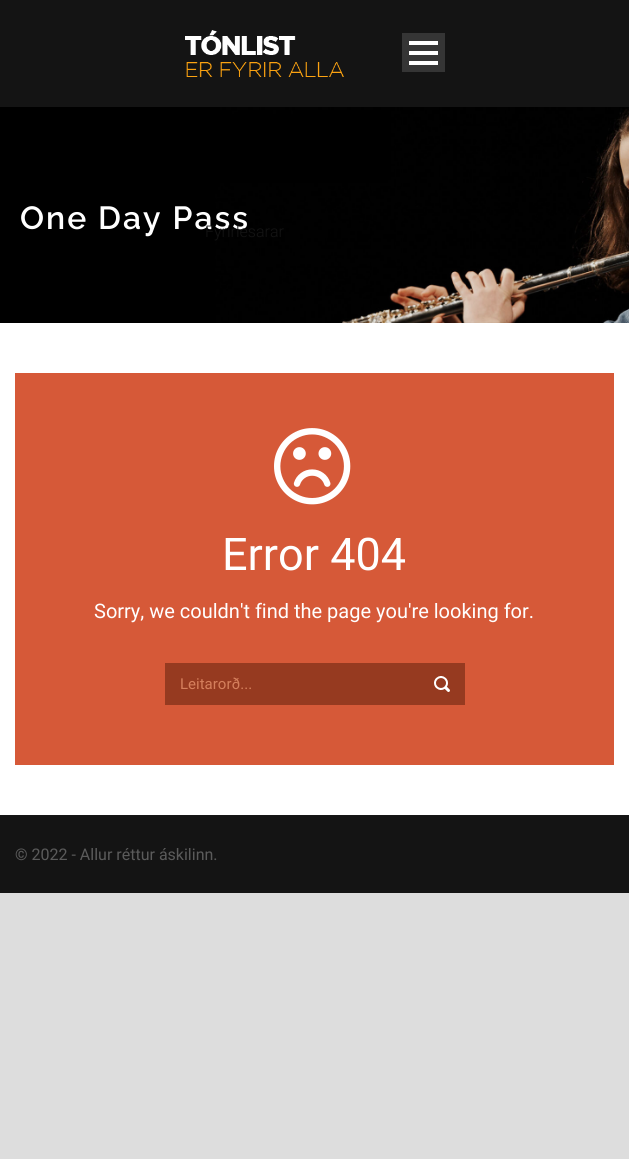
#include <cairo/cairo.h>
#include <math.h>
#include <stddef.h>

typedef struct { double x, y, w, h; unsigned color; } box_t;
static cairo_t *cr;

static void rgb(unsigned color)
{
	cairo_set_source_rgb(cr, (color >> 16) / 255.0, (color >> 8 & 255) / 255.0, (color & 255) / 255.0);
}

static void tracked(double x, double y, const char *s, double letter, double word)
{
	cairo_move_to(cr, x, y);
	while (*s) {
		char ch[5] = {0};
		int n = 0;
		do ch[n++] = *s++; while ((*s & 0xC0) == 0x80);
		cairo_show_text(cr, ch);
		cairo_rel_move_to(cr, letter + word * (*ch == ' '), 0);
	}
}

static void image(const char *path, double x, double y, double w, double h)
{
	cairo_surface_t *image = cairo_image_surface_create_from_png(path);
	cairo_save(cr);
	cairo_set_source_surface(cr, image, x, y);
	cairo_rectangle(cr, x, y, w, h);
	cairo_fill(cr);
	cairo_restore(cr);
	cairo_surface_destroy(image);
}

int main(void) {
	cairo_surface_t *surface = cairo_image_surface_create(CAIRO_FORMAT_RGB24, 629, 1159);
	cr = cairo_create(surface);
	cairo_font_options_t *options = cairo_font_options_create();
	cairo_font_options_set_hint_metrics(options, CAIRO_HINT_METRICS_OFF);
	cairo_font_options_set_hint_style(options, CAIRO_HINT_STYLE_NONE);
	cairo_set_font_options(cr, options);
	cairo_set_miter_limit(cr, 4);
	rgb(0xdddddd);
	cairo_paint(cr);
	rgb(0xffffff);
	cairo_rectangle(cr, 0, 323, 629, 492);
	cairo_fill(cr);
	image("img/1.png", 0, 107, 629, 216);
	rgb(0x141414);
	cairo_rectangle(cr, 0, 0, 629, 107);
	cairo_fill(cr);
	image("img/2.png", 185, 30, 159, 47);
	{
		static const box_t items[] = {
			{402, 33, 43, 39, 0x353535},
			{409, 61, 29, 4, 0xffffff},
			{409, 51, 29, 4, 0xffffff},
			{409, 41, 29, 4, 0xffffff},
			{15, 373, 599, 392, 0xd65938},
		};
		for (size_t i = 0; i < sizeof items / sizeof *items; i++) {
			rgb(items[i].color);
			cairo_rectangle(cr, items[i].x, items[i].y, items[i].w, items[i].h);
			cairo_fill(cr);
		}
	}
	image("img/3.png", 274, 428, 77, 77);
	rgb(0x963a20);
	cairo_rectangle(cr, 165, 663, 300, 42);
	cairo_fill(cr);
	image("img/4.png", 434, 676, 16, 16);
	rgb(0x141414);
	cairo_rectangle(cr, 0, 816, 629, 77);
	cairo_fill(cr);
	rgb(0x161616);
	cairo_rectangle(cr, 0, 815, 629, 1);
	cairo_fill(cr);
	cairo_select_font_face(cr, "Raleway SemiBold", CAIRO_FONT_SLANT_NORMAL, CAIRO_FONT_WEIGHT_NORMAL);
	cairo_set_font_size(cr, 32);
	rgb(0xffffff);
	tracked(20, 229, "One Day Pass", 2, 0);
	cairo_select_font_face(cr, "Roboto Light", CAIRO_FONT_SLANT_NORMAL, CAIRO_FONT_WEIGHT_NORMAL);
	cairo_set_font_size(cr, 16);
	rgb(0x141414);
	cairo_move_to(cr, 205, 237);
	cairo_show_text(cr, "Fyrirlesarar");
	cairo_select_font_face(cr, "Roboto", CAIRO_FONT_SLANT_NORMAL, CAIRO_FONT_WEIGHT_NORMAL);
	cairo_set_font_size(cr, 45);
	rgb(0xffffff);
	cairo_move_to(cr, 222, 570);
	cairo_show_text(cr, "Error 404");
	cairo_set_font_size(cr, 20);
	cairo_move_to(cr, 94, 618);
	cairo_show_text(cr, "Sorry, we couldn't find the page you're looking for.");
	cairo_set_font_size(cr, 15);
	rgb(0xd57f5c);
	cairo_move_to(cr, 180, 689);
	cairo_show_text(cr, "Leitarorð...");
	cairo_set_font_size(cr, 16);
	rgb(0x5b5b5b);
	cairo_move_to(cr, 15, 860);
	cairo_show_text(cr, "© 2022 - Allur réttur áskilinn.");
	cairo_surface_write_to_png(surface, "page.png");
	cairo_font_options_destroy(options);
	cairo_destroy(cr);
	cairo_surface_destroy(surface);
	return 0;
}
